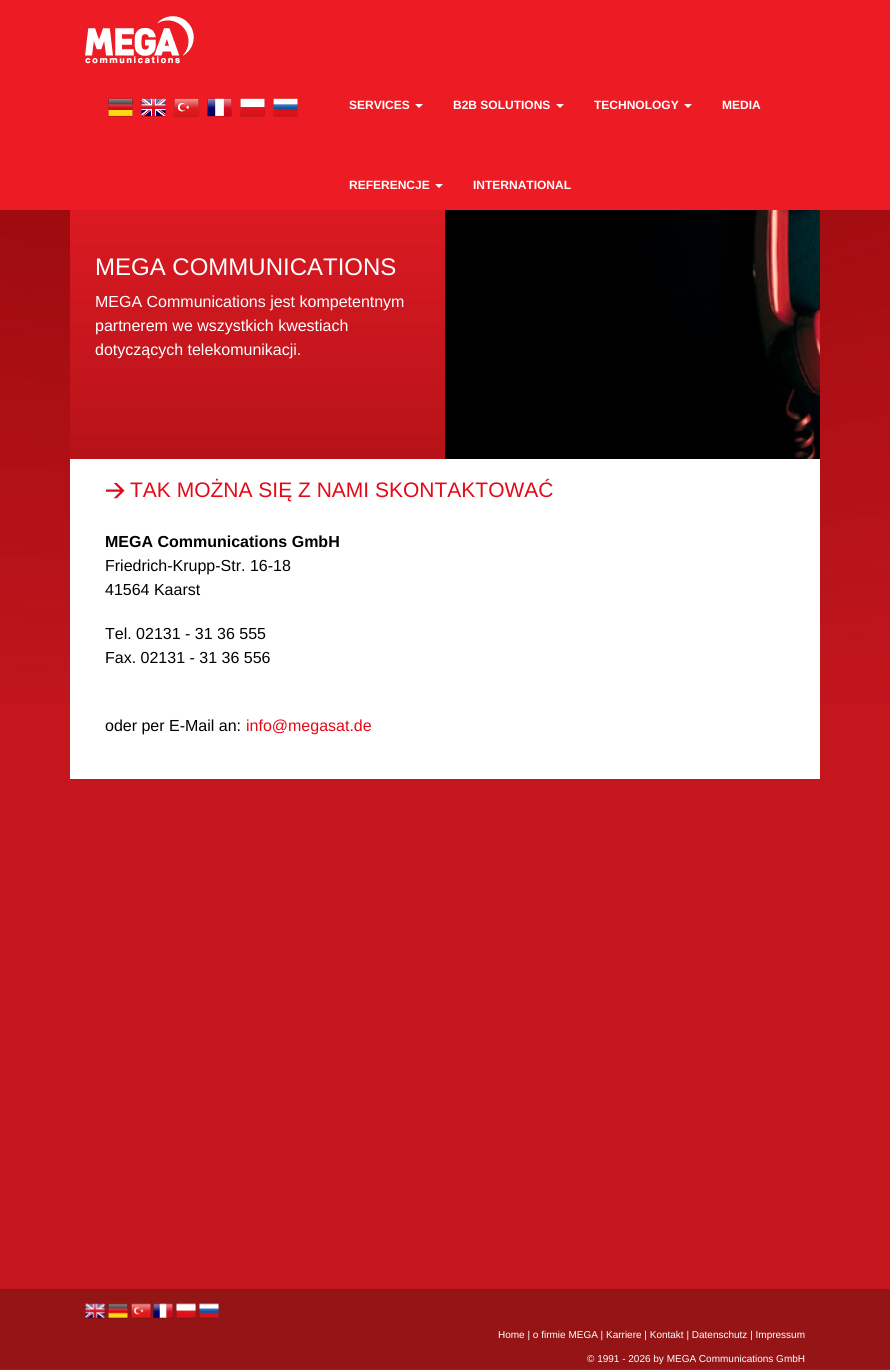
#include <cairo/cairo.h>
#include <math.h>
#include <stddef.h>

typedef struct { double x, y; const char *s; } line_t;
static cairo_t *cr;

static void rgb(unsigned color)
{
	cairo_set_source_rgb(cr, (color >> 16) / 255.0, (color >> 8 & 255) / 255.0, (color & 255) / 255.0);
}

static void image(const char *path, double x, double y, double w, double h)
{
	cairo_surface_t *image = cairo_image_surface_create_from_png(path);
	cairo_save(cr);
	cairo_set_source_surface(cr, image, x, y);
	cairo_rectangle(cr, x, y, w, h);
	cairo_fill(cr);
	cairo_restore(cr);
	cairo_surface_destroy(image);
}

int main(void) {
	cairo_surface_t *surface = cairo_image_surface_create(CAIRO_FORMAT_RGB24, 890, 1370);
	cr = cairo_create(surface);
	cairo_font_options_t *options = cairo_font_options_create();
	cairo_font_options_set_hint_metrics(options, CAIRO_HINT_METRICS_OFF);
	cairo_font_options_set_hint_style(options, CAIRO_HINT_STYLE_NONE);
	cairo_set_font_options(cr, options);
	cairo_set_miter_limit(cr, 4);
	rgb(0xc5161d);
	cairo_paint(cr);
	image("img/1.png", 0, 210, 890, 494);
	rgb(0xed1c24);
	cairo_rectangle(cr, 0, 0, 890, 210);
	cairo_fill(cr);
	image("img/2.png", 85, 16, 109, 48);
	image("img/3.png", 108, 98, 25, 19);
	image("img/4.png", 141, 98, 25, 19);
	image("img/5.png", 174, 98, 25, 19);
	image("img/6.png", 207, 98, 25, 19);
	image("img/7.png", 240, 98, 25, 19);
	image("img/8.png", 273, 98, 25, 19);
	rgb(0xffffff);
	cairo_new_path(cr);
	cairo_move_to(cr, 415, 104);
	cairo_line_to(cr, 423, 104);
	cairo_line_to(cr, 419, 108);
	cairo_close_path(cr);
	cairo_fill(cr);
	cairo_new_path(cr);
	cairo_move_to(cr, 556, 104);
	cairo_line_to(cr, 564, 104);
	cairo_line_to(cr, 560, 108);
	cairo_close_path(cr);
	cairo_fill(cr);
	cairo_new_path(cr);
	cairo_move_to(cr, 684, 104);
	cairo_line_to(cr, 692, 104);
	cairo_line_to(cr, 688, 108);
	cairo_close_path(cr);
	cairo_fill(cr);
	cairo_new_path(cr);
	cairo_move_to(cr, 435, 184);
	cairo_line_to(cr, 443, 184);
	cairo_line_to(cr, 439, 188);
	cairo_close_path(cr);
	cairo_fill(cr);
	image("img/9.png", 70, 210, 375, 249);
	image("img/10.png", 445, 210, 375, 249);
	cairo_rectangle(cr, 70, 459, 750, 320);
	cairo_fill(cr);
	image("img/11.png", 106, 483, 19, 16);
	rgb(0x951516);
	cairo_rectangle(cr, 0, 1289, 890, 80);
	cairo_fill(cr);
	image("img/12.png", 85, 1303, 20, 16);
	image("img/13.png", 108, 1303, 20, 16);
	image("img/14.png", 131, 1303, 20, 16);
	image("img/15.png", 153, 1303, 20, 16);
	image("img/16.png", 176, 1303, 20, 16);
	image("img/17.png", 199, 1303, 20, 16);
	cairo_select_font_face(cr, "Liberation Sans", CAIRO_FONT_SLANT_NORMAL, CAIRO_FONT_WEIGHT_BOLD);
	cairo_set_font_size(cr, 12);
	rgb(0xffffff);
	{
		static const line_t items[] = {
			{349, 109, "SERVICES"},
			{453, 109, "B2B SOLUTIONS"},
			{594, 109, "TECHNOLOGY"},
			{722, 109, "MEDIA"},
			{349, 189, "REFERENCJE"},
			{473, 189, "INTERNATIONAL"},
		};
		for (size_t i = 0; i < sizeof items / sizeof *items; i++) {
			cairo_move_to(cr, items[i].x, items[i].y);
			cairo_show_text(cr, items[i].s);
		}
	}
	cairo_select_font_face(cr, "Liberation Sans", CAIRO_FONT_SLANT_NORMAL, CAIRO_FONT_WEIGHT_NORMAL);
	cairo_set_font_size(cr, 24);
	cairo_move_to(cr, 95, 275);
	cairo_show_text(cr, "MEGA COMMUNICATIONS");
	cairo_set_font_size(cr, 16);
	{
		static const line_t items[] = {
			{95, 307, "MEGA Communications jest kompetentnym"},
			{95, 331, "partnerem we wszystkich kwestiach"},
			{95, 355, "dotyczących telekomunikacji."},
		};
		for (size_t i = 0; i < sizeof items / sizeof *items; i++) {
			cairo_move_to(cr, items[i].x, items[i].y);
			cairo_show_text(cr, items[i].s);
		}
	}
	cairo_set_font_size(cr, 21);
	rgb(0xe20a16);
	cairo_move_to(cr, 130, 497);
	cairo_show_text(cr, "TAK MOŻNA SIĘ Z NAMI SKONTAKTOWAĆ");
	cairo_select_font_face(cr, "Liberation Sans", CAIRO_FONT_SLANT_NORMAL, CAIRO_FONT_WEIGHT_BOLD);
	cairo_set_font_size(cr, 16);
	rgb(0x000000);
	cairo_move_to(cr, 105, 547);
	cairo_show_text(cr, "MEGA Communications GmbH");
	cairo_select_font_face(cr, "Liberation Sans", CAIRO_FONT_SLANT_NORMAL, CAIRO_FONT_WEIGHT_NORMAL);
	{
		static const line_t items[] = {
			{105, 571, "Friedrich-Krupp-Str. 16-18"},
			{105, 595, "41564 Kaarst"},
			{105, 639, "Tel. 02131 - 31 36 555"},
			{105, 663, "Fax. 02131 - 31 36 556"},
			{105, 731, "oder per E-Mail an:"},
		};
		for (size_t i = 0; i < sizeof items / sizeof *items; i++) {
			cairo_move_to(cr, items[i].x, items[i].y);
			cairo_show_text(cr, items[i].s);
		}
	}
	rgb(0xe20a16);
	cairo_move_to(cr, 246, 731);
	cairo_show_text(cr, "info@megasat.de");
	cairo_set_font_size(cr, 10);
	rgb(0xffffff);
	cairo_move_to(cr, 498, 1338);
	cairo_show_text(cr, "Home | o firmie MEGA | Karriere | Kontakt | Datenschutz | Impressum");
	cairo_move_to(cr, 587, 1362);
	cairo_show_text(cr, "© 1991 - 2026 by MEGA Communications GmbH");
	cairo_surface_write_to_png(surface, "page.png");
	cairo_font_options_destroy(options);
	cairo_destroy(cr);
	cairo_surface_destroy(surface);
	return 0;
}
